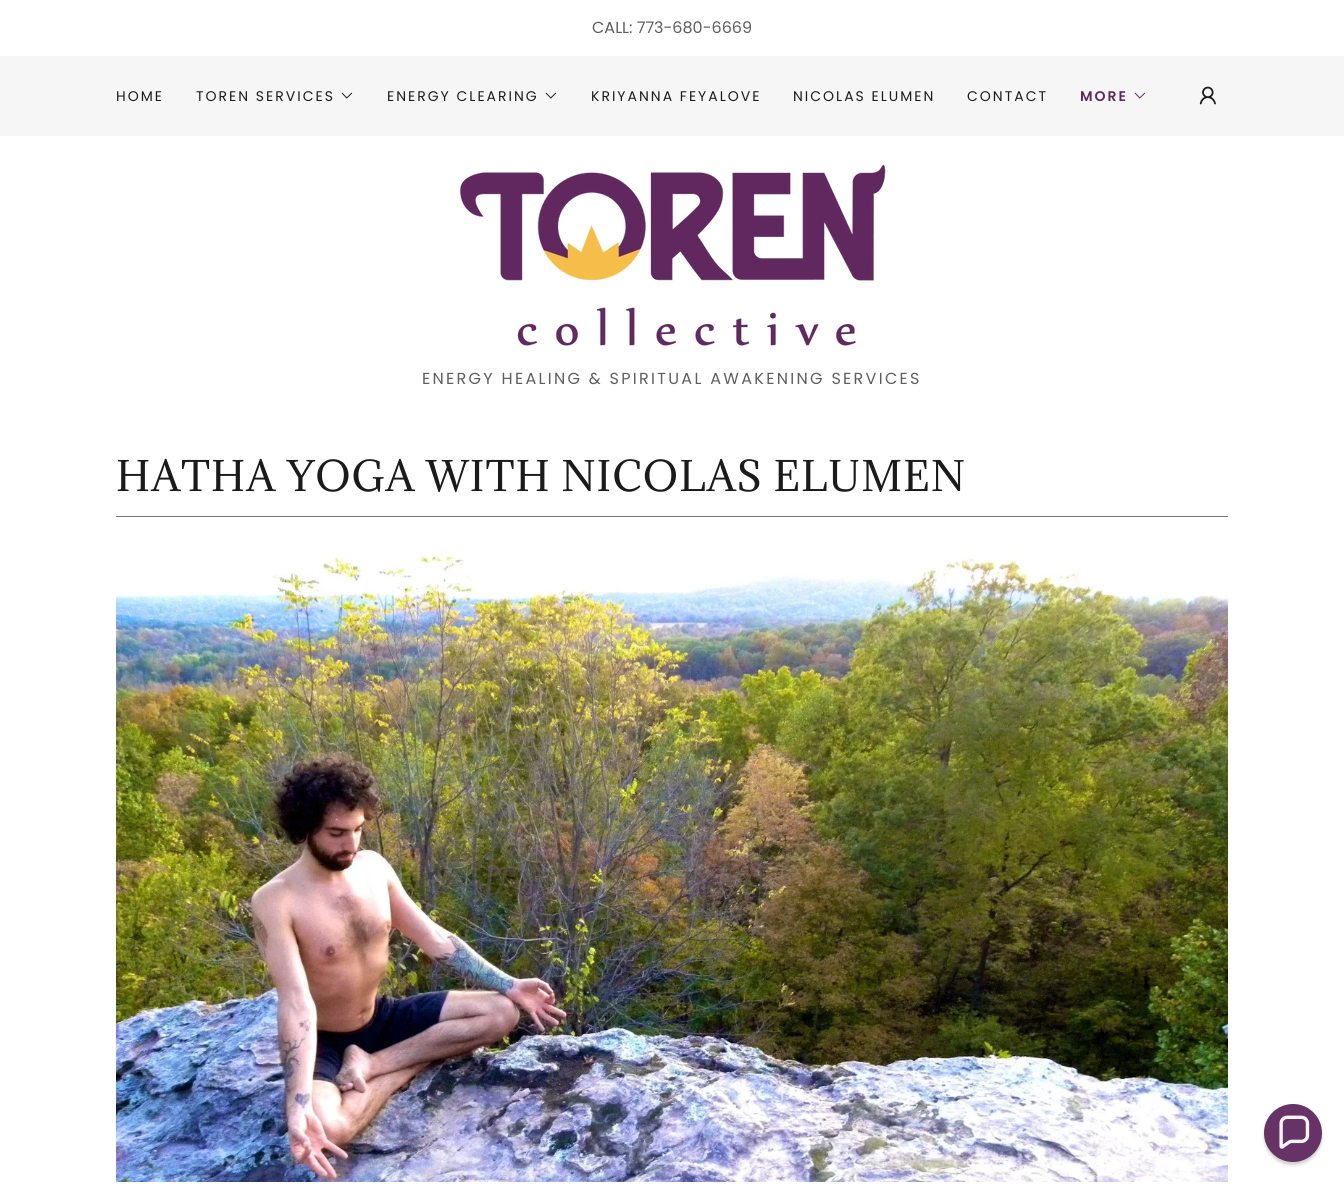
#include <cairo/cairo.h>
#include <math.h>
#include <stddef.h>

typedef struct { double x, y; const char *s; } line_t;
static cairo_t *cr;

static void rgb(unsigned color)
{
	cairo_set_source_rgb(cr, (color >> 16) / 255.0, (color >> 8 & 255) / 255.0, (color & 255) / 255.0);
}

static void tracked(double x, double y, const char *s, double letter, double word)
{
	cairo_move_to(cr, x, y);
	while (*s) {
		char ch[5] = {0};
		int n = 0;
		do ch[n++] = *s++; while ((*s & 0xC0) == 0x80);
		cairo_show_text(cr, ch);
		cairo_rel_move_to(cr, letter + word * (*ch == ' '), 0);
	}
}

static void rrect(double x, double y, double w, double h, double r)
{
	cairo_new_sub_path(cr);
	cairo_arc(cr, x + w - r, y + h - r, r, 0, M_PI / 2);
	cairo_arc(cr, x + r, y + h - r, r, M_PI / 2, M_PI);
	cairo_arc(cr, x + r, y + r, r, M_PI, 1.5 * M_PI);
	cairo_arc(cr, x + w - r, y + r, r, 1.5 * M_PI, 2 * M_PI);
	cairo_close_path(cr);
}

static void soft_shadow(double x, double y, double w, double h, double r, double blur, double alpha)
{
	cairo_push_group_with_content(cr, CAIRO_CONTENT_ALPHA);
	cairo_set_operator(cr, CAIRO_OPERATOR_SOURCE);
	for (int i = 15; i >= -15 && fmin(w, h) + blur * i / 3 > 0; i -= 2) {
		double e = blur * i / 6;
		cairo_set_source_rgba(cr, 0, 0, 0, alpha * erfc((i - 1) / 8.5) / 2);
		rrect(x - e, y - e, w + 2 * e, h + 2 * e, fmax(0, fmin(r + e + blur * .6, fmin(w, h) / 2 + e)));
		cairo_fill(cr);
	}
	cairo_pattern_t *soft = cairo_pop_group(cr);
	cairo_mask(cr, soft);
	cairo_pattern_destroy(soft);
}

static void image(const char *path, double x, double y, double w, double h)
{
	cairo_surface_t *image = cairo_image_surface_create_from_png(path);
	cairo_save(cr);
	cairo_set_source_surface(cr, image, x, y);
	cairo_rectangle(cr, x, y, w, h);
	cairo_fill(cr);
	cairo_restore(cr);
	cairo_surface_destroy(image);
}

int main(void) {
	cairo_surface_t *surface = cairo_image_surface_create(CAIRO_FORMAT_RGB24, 1344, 1184);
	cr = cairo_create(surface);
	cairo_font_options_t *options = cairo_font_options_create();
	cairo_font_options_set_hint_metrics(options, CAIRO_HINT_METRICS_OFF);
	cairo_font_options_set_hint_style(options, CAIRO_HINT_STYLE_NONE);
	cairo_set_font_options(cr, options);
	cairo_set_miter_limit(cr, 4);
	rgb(0xffffff);
	cairo_paint(cr);
	rgb(0xf6f6f6);
	cairo_rectangle(cr, 0, 56, 1344, 80);
	cairo_fill(cr);
	image("img/1.png", 341, 92, 12, 7);
	image("img/1.png", 545, 92, 12, 7);
	image("img/2.png", 1134, 92, 12, 7);
	image("img/3.png", 1199, 86, 17, 19);
	image("img/4.png", 460, 164, 426, 182);
	rgb(0x777777);
	cairo_rectangle(cr, 116, 516, 1112, 1);
	cairo_fill(cr);
	image("img/5.png", 116, 557, 1112, 625);
	rgb(0x0d0d0d);
	soft_shadow(1264, 1107, 58, 58, 29, 1.5, 0.2);
	rgb(0x673266);
	cairo_arc(cr, 1293, 1133, 29, 0, 2 * M_PI);
	cairo_fill(cr);
	image("img/6.png", 1279, 1115, 31, 34);
	cairo_select_font_face(cr, "Poppins", CAIRO_FONT_SLANT_NORMAL, CAIRO_FONT_WEIGHT_NORMAL);
	cairo_set_font_size(cr, 16);
	rgb(0x5e5e5e);
	cairo_move_to(cr, 592, 33);
	cairo_show_text(cr, "CALL: 773-680-6669");
	cairo_set_font_size(cr, 14);
	rgb(0x1b1b1b);
	{
		static const line_t items[] = {
			{116, 101, "HOME"},
			{196, 101, "TOREN SERVICES"},
			{387, 101, "ENERGY CLEARING"},
			{591, 101, "KRIYANNA FEYALOVE"},
			{793, 101, "NICOLAS ELUMEN"},
			{967, 101, "CONTACT"},
		};
		for (size_t i = 0; i < sizeof items / sizeof *items; i++) {
			tracked(items[i].x, items[i].y, items[i].s, 2, 0);
		}
	}
	cairo_select_font_face(cr, "Poppins SemiBold", CAIRO_FONT_SLANT_NORMAL, CAIRO_FONT_WEIGHT_NORMAL);
	rgb(0x5f275e);
	tracked(1080, 101, "MORE", 2, 0);
	cairo_select_font_face(cr, "Poppins", CAIRO_FONT_SLANT_NORMAL, CAIRO_FONT_WEIGHT_NORMAL);
	cairo_set_font_size(cr, 16);
	rgb(0x5e5e5e);
	tracked(422, 384, "ENERGY HEALING & SPIRITUAL AWAKENING SERVICES", 2.3, 0);
	cairo_select_font_face(cr, "Adamina", CAIRO_FONT_SLANT_NORMAL, CAIRO_FONT_WEIGHT_NORMAL);
	cairo_set_font_size(cr, 39);
	rgb(0x1b1b1b);
	tracked(116, 491, "HATHA YOGA WITH NICOLAS ELUMEN", 1, 0);
	cairo_surface_write_to_png(surface, "page.png");
	cairo_font_options_destroy(options);
	cairo_destroy(cr);
	cairo_surface_destroy(surface);
	return 0;
}
